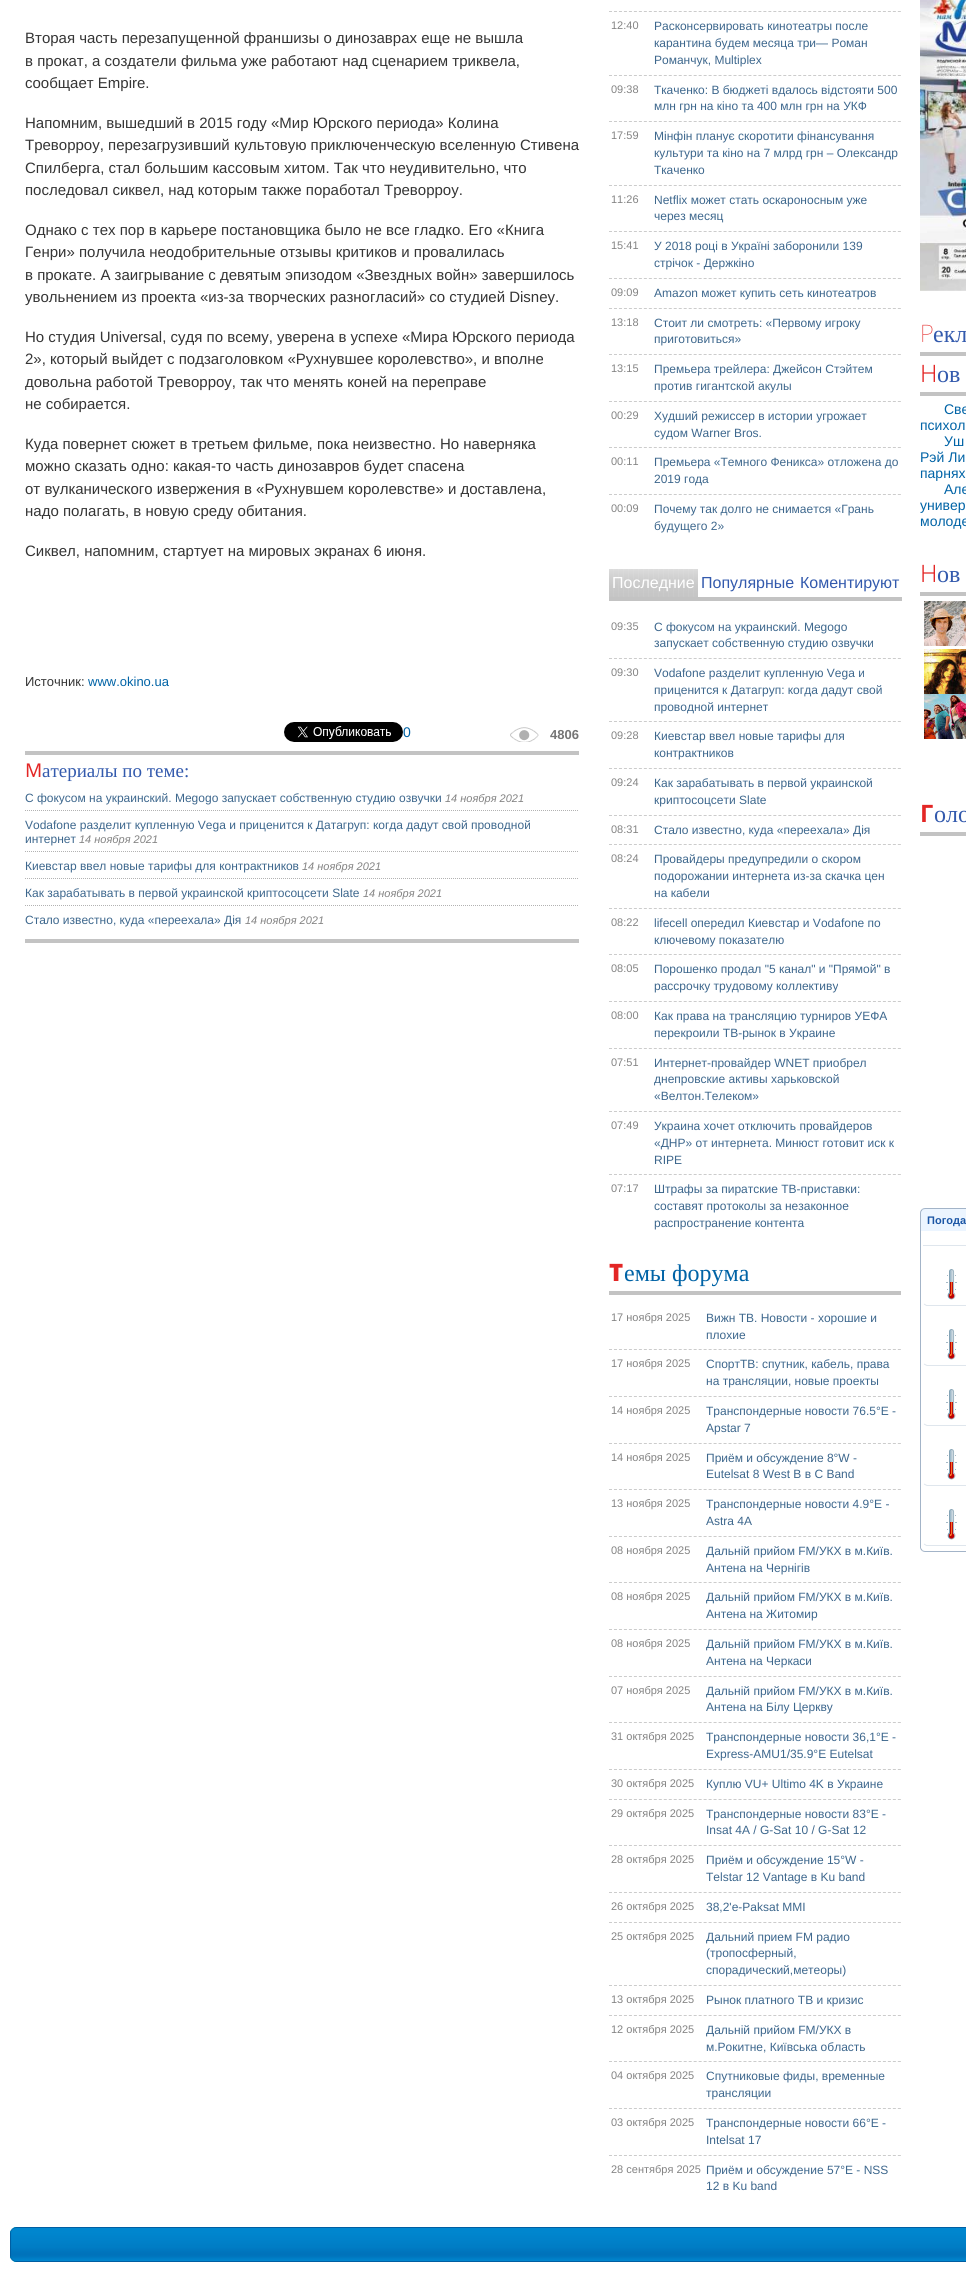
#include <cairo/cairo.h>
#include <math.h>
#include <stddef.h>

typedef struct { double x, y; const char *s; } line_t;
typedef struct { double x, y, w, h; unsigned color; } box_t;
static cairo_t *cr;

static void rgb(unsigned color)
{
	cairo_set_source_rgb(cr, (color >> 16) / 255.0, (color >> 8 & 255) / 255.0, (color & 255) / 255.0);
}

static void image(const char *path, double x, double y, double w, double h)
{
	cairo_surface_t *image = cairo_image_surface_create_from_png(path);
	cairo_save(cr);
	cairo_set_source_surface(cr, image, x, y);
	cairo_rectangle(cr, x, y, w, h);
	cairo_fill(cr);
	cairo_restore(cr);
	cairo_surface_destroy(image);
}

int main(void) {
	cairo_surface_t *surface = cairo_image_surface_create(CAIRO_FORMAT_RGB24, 966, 2269);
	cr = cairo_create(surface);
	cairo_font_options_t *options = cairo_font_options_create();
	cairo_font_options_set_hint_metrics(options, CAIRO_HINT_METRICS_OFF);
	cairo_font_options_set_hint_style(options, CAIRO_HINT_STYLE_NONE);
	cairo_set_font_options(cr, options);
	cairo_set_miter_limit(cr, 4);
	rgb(0xffffff);
	cairo_paint(cr);
	rgb(0xc3c3c3);
	cairo_rectangle(cr, 25, 751, 554, 4);
	cairo_fill(cr);
	image("img/1.png", 284, 722, 119, 20);
	image("img/2.png", 510, 727, 29, 15);
	cairo_rectangle(cr, 25, 939, 554, 4);
	cairo_fill(cr);
	cairo_new_path(cr);
	cairo_move_to(cr, 25, 810.5);
	cairo_line_to(cr, 579, 810.5);
	rgb(0xb2b2b2);
	cairo_set_line_width(cr, 1);
	cairo_set_dash(cr, (double[]){1, 1}, 2, 0);
	cairo_stroke(cr);
	cairo_new_path(cr);
	cairo_move_to(cr, 25, 851.5);
	cairo_line_to(cr, 579, 851.5);
	cairo_stroke(cr);
	cairo_new_path(cr);
	cairo_move_to(cr, 25, 878.5);
	cairo_line_to(cr, 579, 878.5);
	cairo_stroke(cr);
	cairo_new_path(cr);
	cairo_move_to(cr, 25, 905.5);
	cairo_line_to(cr, 579, 905.5);
	cairo_stroke(cr);
	cairo_new_path(cr);
	cairo_move_to(cr, 609, 11.5);
	cairo_line_to(cr, 901, 11.5);
	rgb(0xcccccc);
	cairo_set_dash(cr, (double[]){3, 1.98}, 2, 0);
	cairo_stroke(cr);
	cairo_new_path(cr);
	cairo_move_to(cr, 609, 75.5);
	cairo_line_to(cr, 901, 75.5);
	cairo_stroke(cr);
	cairo_new_path(cr);
	cairo_move_to(cr, 609, 121.5);
	cairo_line_to(cr, 901, 121.5);
	cairo_stroke(cr);
	cairo_new_path(cr);
	cairo_move_to(cr, 609, 185.5);
	cairo_line_to(cr, 901, 185.5);
	cairo_stroke(cr);
	cairo_new_path(cr);
	cairo_move_to(cr, 609, 231.5);
	cairo_line_to(cr, 901, 231.5);
	cairo_stroke(cr);
	cairo_new_path(cr);
	cairo_move_to(cr, 609, 278.5);
	cairo_line_to(cr, 901, 278.5);
	cairo_stroke(cr);
	cairo_new_path(cr);
	cairo_move_to(cr, 609, 308.5);
	cairo_line_to(cr, 901, 308.5);
	cairo_stroke(cr);
	cairo_new_path(cr);
	cairo_move_to(cr, 609, 354.5);
	cairo_line_to(cr, 901, 354.5);
	cairo_stroke(cr);
	cairo_new_path(cr);
	cairo_move_to(cr, 609, 401.5);
	cairo_line_to(cr, 901, 401.5);
	cairo_stroke(cr);
	cairo_new_path(cr);
	cairo_move_to(cr, 609, 447.5);
	cairo_line_to(cr, 901, 447.5);
	cairo_stroke(cr);
	cairo_new_path(cr);
	cairo_move_to(cr, 609, 494.5);
	cairo_line_to(cr, 901, 494.5);
	cairo_stroke(cr);
	rgb(0xc3c3c3);
	cairo_rectangle(cr, 609, 597, 293, 4);
	cairo_fill(cr);
	image("img/3.png", 609, 569, 89, 28);
	cairo_new_path(cr);
	cairo_move_to(cr, 609, 658.5);
	cairo_line_to(cr, 901, 658.5);
	rgb(0xcccccc);
	cairo_stroke(cr);
	cairo_new_path(cr);
	cairo_move_to(cr, 609, 721.5);
	cairo_line_to(cr, 901, 721.5);
	cairo_stroke(cr);
	cairo_new_path(cr);
	cairo_move_to(cr, 609, 768.5);
	cairo_line_to(cr, 901, 768.5);
	cairo_stroke(cr);
	cairo_new_path(cr);
	cairo_move_to(cr, 609, 815.5);
	cairo_line_to(cr, 901, 815.5);
	cairo_stroke(cr);
	cairo_new_path(cr);
	cairo_move_to(cr, 609, 844.5);
	cairo_line_to(cr, 901, 844.5);
	cairo_stroke(cr);
	cairo_new_path(cr);
	cairo_move_to(cr, 609, 908.5);
	cairo_line_to(cr, 901, 908.5);
	cairo_stroke(cr);
	cairo_new_path(cr);
	cairo_move_to(cr, 609, 954.5);
	cairo_line_to(cr, 901, 954.5);
	cairo_stroke(cr);
	cairo_new_path(cr);
	cairo_move_to(cr, 609, 1001.5);
	cairo_line_to(cr, 901, 1001.5);
	cairo_stroke(cr);
	cairo_new_path(cr);
	cairo_move_to(cr, 609, 1048.5);
	cairo_line_to(cr, 901, 1048.5);
	cairo_stroke(cr);
	cairo_new_path(cr);
	cairo_move_to(cr, 609, 1111.5);
	cairo_line_to(cr, 901, 1111.5);
	cairo_stroke(cr);
	cairo_new_path(cr);
	cairo_move_to(cr, 609, 1174.5);
	cairo_line_to(cr, 901, 1174.5);
	cairo_stroke(cr);
	rgb(0xc3c3c3);
	cairo_rectangle(cr, 609, 1291, 292, 4);
	cairo_fill(cr);
	cairo_new_path(cr);
	cairo_move_to(cr, 609, 1349.5);
	cairo_line_to(cr, 901, 1349.5);
	rgb(0xcccccc);
	cairo_stroke(cr);
	cairo_new_path(cr);
	cairo_move_to(cr, 609, 1396.5);
	cairo_line_to(cr, 901, 1396.5);
	cairo_stroke(cr);
	cairo_new_path(cr);
	cairo_move_to(cr, 609, 1443.5);
	cairo_line_to(cr, 901, 1443.5);
	cairo_stroke(cr);
	cairo_new_path(cr);
	cairo_move_to(cr, 609, 1489.5);
	cairo_line_to(cr, 901, 1489.5);
	cairo_stroke(cr);
	cairo_new_path(cr);
	cairo_move_to(cr, 609, 1536.5);
	cairo_line_to(cr, 901, 1536.5);
	cairo_stroke(cr);
	cairo_new_path(cr);
	cairo_move_to(cr, 609, 1582.5);
	cairo_line_to(cr, 901, 1582.5);
	cairo_stroke(cr);
	cairo_new_path(cr);
	cairo_move_to(cr, 609, 1629.5);
	cairo_line_to(cr, 901, 1629.5);
	cairo_stroke(cr);
	cairo_new_path(cr);
	cairo_move_to(cr, 609, 1676.5);
	cairo_line_to(cr, 901, 1676.5);
	cairo_stroke(cr);
	cairo_new_path(cr);
	cairo_move_to(cr, 609, 1722.5);
	cairo_line_to(cr, 901, 1722.5);
	cairo_stroke(cr);
	cairo_new_path(cr);
	cairo_move_to(cr, 609, 1769.5);
	cairo_line_to(cr, 901, 1769.5);
	cairo_stroke(cr);
	cairo_new_path(cr);
	cairo_move_to(cr, 609, 1799.5);
	cairo_line_to(cr, 901, 1799.5);
	cairo_stroke(cr);
	cairo_new_path(cr);
	cairo_move_to(cr, 609, 1845.5);
	cairo_line_to(cr, 901, 1845.5);
	cairo_stroke(cr);
	cairo_new_path(cr);
	cairo_move_to(cr, 609, 1892.5);
	cairo_line_to(cr, 901, 1892.5);
	cairo_stroke(cr);
	cairo_new_path(cr);
	cairo_move_to(cr, 609, 1922.5);
	cairo_line_to(cr, 901, 1922.5);
	cairo_stroke(cr);
	cairo_new_path(cr);
	cairo_move_to(cr, 609, 1985.5);
	cairo_line_to(cr, 901, 1985.5);
	cairo_stroke(cr);
	cairo_new_path(cr);
	cairo_move_to(cr, 609, 2015.5);
	cairo_line_to(cr, 901, 2015.5);
	cairo_stroke(cr);
	cairo_new_path(cr);
	cairo_move_to(cr, 609, 2061.5);
	cairo_line_to(cr, 901, 2061.5);
	cairo_stroke(cr);
	cairo_new_path(cr);
	cairo_move_to(cr, 609, 2108.5);
	cairo_line_to(cr, 901, 2108.5);
	cairo_stroke(cr);
	cairo_new_path(cr);
	cairo_move_to(cr, 609, 2155.5);
	cairo_line_to(cr, 901, 2155.5);
	cairo_stroke(cr);
	image("img/4.png", 920, 0, 46, 291);
	{
		static const box_t items[] = {
			{920, 352, 46, 4, 0xc3c3c3},
			{920, 392, 46, 4, 0xc3c3c3},
			{920, 592, 46, 4, 0xc3c3c3},
		};
		for (size_t i = 0; i < sizeof items / sizeof *items; i++) {
			rgb(items[i].color);
			cairo_rectangle(cr, items[i].x, items[i].y, items[i].w, items[i].h);
			cairo_fill(cr);
		}
	}
	image("img/5.png", 924, 601, 42, 45);
	image("img/6.png", 924, 649, 42, 45);
	image("img/7.png", 924, 694, 42, 45);
	cairo_rectangle(cr, 920, 832, 46, 4);
	cairo_fill(cr);
	image("img/8.png", 920, 1208, 5, 23);
	{
		static const box_t items[] = {
			{925, 1209, 41, 22, 0xecf5ff},
			{925, 1208, 41, 1, 0xa3b4c8},
			{920, 1231, 1, 317, 0xa3b4c8},
			{923, 1245, 43, 1, 0xdfe6ed},
		};
		for (size_t i = 0; i < sizeof items / sizeof *items; i++) {
			rgb(items[i].color);
			cairo_rectangle(cr, items[i].x, items[i].y, items[i].w, items[i].h);
			cairo_fill(cr);
		}
	}
	cairo_new_path(cr);
	cairo_move_to(cr, 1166, 1304);
	cairo_line_to(cr, 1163, 1305.5);
	cairo_line_to(cr, 926.5, 1305.5);
	cairo_line_to(cr, 924, 1304);
	cairo_move_to(cr, 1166, 1364);
	cairo_line_to(cr, 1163.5, 1365.5);
	cairo_line_to(cr, 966.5, 1365.5);
	cairo_line_to(cr, 927, 1365.5);
	cairo_line_to(cr, 924, 1364);
	cairo_set_dash(cr, NULL, 0, 0);
	cairo_stroke(cr);
	image("img/9.png", 946, 1269, 11, 31);
	image("img/9.png", 946, 1329, 11, 31);
	cairo_new_path(cr);
	cairo_move_to(cr, 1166, 1424);
	cairo_line_to(cr, 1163.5, 1425.5);
	cairo_line_to(cr, 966.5, 1425.5);
	cairo_line_to(cr, 927, 1425.5);
	cairo_line_to(cr, 924, 1424);
	cairo_move_to(cr, 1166, 1484);
	cairo_line_to(cr, 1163.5, 1485.5);
	cairo_line_to(cr, 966.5, 1485.5);
	cairo_line_to(cr, 927, 1485.5);
	cairo_line_to(cr, 924, 1484);
	cairo_stroke(cr);
	image("img/9.png", 946, 1389, 11, 31);
	image("img/9.png", 946, 1449, 11, 31);
	cairo_new_path(cr);
	cairo_move_to(cr, 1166, 1544);
	cairo_line_to(cr, 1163, 1545.5);
	cairo_line_to(cr, 926.5, 1545.5);
	cairo_line_to(cr, 924, 1544);
	cairo_stroke(cr);
	image("img/9.png", 946, 1509, 11, 31);
	image("img/10.png", 920, 1548, 5, 4);
	rgb(0xa3b4c8);
	cairo_rectangle(cr, 925, 1551, 41, 1);
	cairo_fill(cr);
	image("img/11.png", 10, 2227, 603, 35);
	image("img/12.png", 613, 2227, 353, 35);
	cairo_select_font_face(cr, "Liberation Sans", CAIRO_FONT_SLANT_NORMAL, CAIRO_FONT_WEIGHT_NORMAL);
	cairo_set_font_size(cr, 15);
	rgb(0x353535);
	{
		static const line_t items[] = {
			{25, 43, "Вторая часть перезапущенной франшизы о динозаврах еще не вышла"},
			{25, 66, "в прокат, а создатели фильма уже работают над сценарием триквела,"},
			{25, 88, "сообщает Empire."},
			{25, 128, "Напомним, вышедший в 2015 году «Мир Юрского периода» Колина"},
			{25, 150, "Треворроу, перезагрузивший культовую приключенческую вселенную Стивена"},
			{25, 173, "Спилберга, стал большим кассовым хитом. Так что неудивительно, что"},
			{25, 195, "последовал сиквел, над которым также поработал Треворроу."},
			{25, 235, "Однако с тех пор в карьере постановщика было не все гладко. Его «Книга"},
			{25, 257, "Генри» получила неодобрительные отзывы критиков и провалилась"},
			{25, 280, "в прокате. А заигрывание с девятым эпизодом «Звездных войн» завершилось"},
			{25, 302, "увольнением из проекта «из-за творческих разногласий» со студией Disney."},
			{25, 342, "Но студия Universal, судя по всему, уверена в успехе «Мира Юрского периода"},
			{25, 364, "2», который выйдет с подзаголовком «Рухнувшее королевство», и вполне"},
			{25, 387, "довольна работой Треворроу, так что менять коней на переправе"},
			{25, 409, "не собирается."},
			{25, 449, "Куда повернет сюжет в третьем фильме, пока неизвестно. Но наверняка"},
			{25, 471, "можно сказать одно: какая-то часть динозавров будет спасена"},
			{25, 494, "от вулканического извержения в «Рухнувшем королевстве» и доставлена,"},
			{25, 516, "надо полагать, в новую среду обитания."},
			{25, 556, "Сиквел, напомним, стартует на мировых экранах 6 июня."},
		};
		for (size_t i = 0; i < sizeof items / sizeof *items; i++) {
			cairo_move_to(cr, items[i].x, items[i].y);
			cairo_show_text(cr, items[i].s);
		}
	}
	cairo_set_font_size(cr, 13);
	cairo_move_to(cr, 25, 686);
	cairo_show_text(cr, "Источник:");
	rgb(0x0063a6);
	cairo_move_to(cr, 88, 686);
	cairo_show_text(cr, "www.okino.ua");
	cairo_set_font_size(cr, 14);
	cairo_move_to(cr, 403, 737);
	cairo_show_text(cr, "0");
	cairo_select_font_face(cr, "Liberation Sans", CAIRO_FONT_SLANT_NORMAL, CAIRO_FONT_WEIGHT_BOLD);
	cairo_set_font_size(cr, 13);
	rgb(0x757575);
	cairo_move_to(cr, 550, 739);
	cairo_show_text(cr, "4806");
	cairo_select_font_face(cr, "Noto Sans", CAIRO_FONT_SLANT_NORMAL, CAIRO_FONT_WEIGHT_NORMAL);
	cairo_set_font_size(cr, 19);
	rgb(0xe32625);
	cairo_move_to(cr, 25, 777);
	cairo_show_text(cr, "М");
	cairo_select_font_face(cr, "Liberation Serif", CAIRO_FONT_SLANT_NORMAL, CAIRO_FONT_WEIGHT_NORMAL);
	rgb(0x335aad);
	cairo_move_to(cr, 42, 777);
	cairo_show_text(cr, "атериалы по теме:");
	cairo_select_font_face(cr, "Liberation Sans", CAIRO_FONT_SLANT_NORMAL, CAIRO_FONT_WEIGHT_NORMAL);
	cairo_set_font_size(cr, 12);
	rgb(0x3d678d);
	cairo_move_to(cr, 25, 802);
	cairo_show_text(cr, "С фокусом на украинский. Megogo запускает собственную студию озвучки");
	cairo_select_font_face(cr, "Liberation Sans", CAIRO_FONT_SLANT_ITALIC, CAIRO_FONT_WEIGHT_NORMAL);
	cairo_set_font_size(cr, 11);
	rgb(0x838383);
	cairo_move_to(cr, 445, 802);
	cairo_show_text(cr, "14 ноября 2021");
	cairo_select_font_face(cr, "Liberation Sans", CAIRO_FONT_SLANT_NORMAL, CAIRO_FONT_WEIGHT_NORMAL);
	cairo_set_font_size(cr, 12);
	rgb(0x3d678d);
	cairo_move_to(cr, 25, 829);
	cairo_show_text(cr, "Vodafone разделит купленную Vega и приценится к Датагруп: когда дадут свой проводной");
	cairo_move_to(cr, 25, 843);
	cairo_show_text(cr, "интернет");
	cairo_select_font_face(cr, "Liberation Sans", CAIRO_FONT_SLANT_ITALIC, CAIRO_FONT_WEIGHT_NORMAL);
	cairo_set_font_size(cr, 11);
	rgb(0x838383);
	cairo_move_to(cr, 79, 843);
	cairo_show_text(cr, "14 ноября 2021");
	cairo_select_font_face(cr, "Liberation Sans", CAIRO_FONT_SLANT_NORMAL, CAIRO_FONT_WEIGHT_NORMAL);
	cairo_set_font_size(cr, 12);
	rgb(0x3d678d);
	cairo_move_to(cr, 25, 870);
	cairo_show_text(cr, "Киевстар ввел новые тарифы для контрактников");
	cairo_select_font_face(cr, "Liberation Sans", CAIRO_FONT_SLANT_ITALIC, CAIRO_FONT_WEIGHT_NORMAL);
	cairo_set_font_size(cr, 11);
	rgb(0x838383);
	cairo_move_to(cr, 302, 870);
	cairo_show_text(cr, "14 ноября 2021");
	cairo_select_font_face(cr, "Liberation Sans", CAIRO_FONT_SLANT_NORMAL, CAIRO_FONT_WEIGHT_NORMAL);
	cairo_set_font_size(cr, 12);
	rgb(0x3d678d);
	cairo_move_to(cr, 25, 897);
	cairo_show_text(cr, "Как зарабатывать в первой украинской криптосоцсети Slate");
	cairo_select_font_face(cr, "Liberation Sans", CAIRO_FONT_SLANT_ITALIC, CAIRO_FONT_WEIGHT_NORMAL);
	cairo_set_font_size(cr, 11);
	rgb(0x838383);
	cairo_move_to(cr, 363, 897);
	cairo_show_text(cr, "14 ноября 2021");
	cairo_select_font_face(cr, "Liberation Sans", CAIRO_FONT_SLANT_NORMAL, CAIRO_FONT_WEIGHT_NORMAL);
	cairo_set_font_size(cr, 12);
	rgb(0x3d678d);
	cairo_move_to(cr, 25, 924);
	cairo_show_text(cr, "Стало известно, куда «переехала» Дія");
	cairo_select_font_face(cr, "Liberation Sans", CAIRO_FONT_SLANT_ITALIC, CAIRO_FONT_WEIGHT_NORMAL);
	cairo_set_font_size(cr, 11);
	rgb(0x838383);
	cairo_move_to(cr, 245, 924);
	cairo_show_text(cr, "14 ноября 2021");
	cairo_select_font_face(cr, "Liberation Sans", CAIRO_FONT_SLANT_NORMAL, CAIRO_FONT_WEIGHT_NORMAL);
	cairo_move_to(cr, 611, 29);
	cairo_show_text(cr, "12:40");
	cairo_set_font_size(cr, 12);
	rgb(0x3d678d);
	{
		static const line_t items[] = {
			{654, 30, "Расконсервировать кинотеатры после"},
			{654, 47, "карантина будем месяца три— Роман"},
			{654, 64, "Романчук, Multiplex"},
		};
		for (size_t i = 0; i < sizeof items / sizeof *items; i++) {
			cairo_move_to(cr, items[i].x, items[i].y);
			cairo_show_text(cr, items[i].s);
		}
	}
	cairo_set_font_size(cr, 11);
	rgb(0x838383);
	cairo_move_to(cr, 611, 93);
	cairo_show_text(cr, "09:38");
	cairo_set_font_size(cr, 12);
	rgb(0x3d678d);
	cairo_move_to(cr, 654, 94);
	cairo_show_text(cr, "Ткаченко: В бюджеті вдалось відстояти 500");
	cairo_move_to(cr, 654, 110);
	cairo_show_text(cr, "млн грн на кіно та 400 млн грн на УКФ");
	cairo_set_font_size(cr, 11);
	rgb(0x838383);
	cairo_move_to(cr, 611, 139);
	cairo_show_text(cr, "17:59");
	cairo_set_font_size(cr, 12);
	rgb(0x3d678d);
	{
		static const line_t items[] = {
			{654, 140, "Мінфін планує скоротити фінансування"},
			{654, 157, "культури та кіно на 7 млрд грн – Олександр"},
			{654, 174, "Ткаченко"},
		};
		for (size_t i = 0; i < sizeof items / sizeof *items; i++) {
			cairo_move_to(cr, items[i].x, items[i].y);
			cairo_show_text(cr, items[i].s);
		}
	}
	cairo_set_font_size(cr, 11);
	rgb(0x838383);
	cairo_move_to(cr, 611, 203);
	cairo_show_text(cr, "11:26");
	cairo_set_font_size(cr, 12);
	rgb(0x3d678d);
	cairo_move_to(cr, 654, 204);
	cairo_show_text(cr, "Netflix может стать оскароносным уже");
	cairo_move_to(cr, 654, 220);
	cairo_show_text(cr, "через месяц");
	cairo_set_font_size(cr, 11);
	rgb(0x838383);
	cairo_move_to(cr, 611, 249);
	cairo_show_text(cr, "15:41");
	cairo_set_font_size(cr, 12);
	rgb(0x3d678d);
	cairo_move_to(cr, 654, 250);
	cairo_show_text(cr, "У 2018 році в Україні заборонили 139");
	cairo_move_to(cr, 654, 267);
	cairo_show_text(cr, "стрічок - Держкіно");
	cairo_set_font_size(cr, 11);
	rgb(0x838383);
	cairo_move_to(cr, 611, 296);
	cairo_show_text(cr, "09:09");
	cairo_set_font_size(cr, 12);
	rgb(0x3d678d);
	cairo_move_to(cr, 654, 297);
	cairo_show_text(cr, "Amazon может купить сеть кинотеатров");
	cairo_set_font_size(cr, 11);
	rgb(0x838383);
	cairo_move_to(cr, 611, 326);
	cairo_show_text(cr, "13:18");
	cairo_set_font_size(cr, 12);
	rgb(0x3d678d);
	cairo_move_to(cr, 654, 327);
	cairo_show_text(cr, "Стоит ли смотреть: «Первому игроку");
	cairo_move_to(cr, 654, 343);
	cairo_show_text(cr, "приготовиться»");
	cairo_set_font_size(cr, 11);
	rgb(0x838383);
	cairo_move_to(cr, 611, 372);
	cairo_show_text(cr, "13:15");
	cairo_set_font_size(cr, 12);
	rgb(0x3d678d);
	cairo_move_to(cr, 654, 373);
	cairo_show_text(cr, "Премьера трейлера: Джейсон Стэйтем");
	cairo_move_to(cr, 654, 390);
	cairo_show_text(cr, "против гигантской акулы");
	cairo_set_font_size(cr, 11);
	rgb(0x838383);
	cairo_move_to(cr, 611, 419);
	cairo_show_text(cr, "00:29");
	cairo_set_font_size(cr, 12);
	rgb(0x3d678d);
	cairo_move_to(cr, 654, 420);
	cairo_show_text(cr, "Худший режиссер в истории угрожает");
	cairo_move_to(cr, 654, 437);
	cairo_show_text(cr, "судом Warner Bros.");
	cairo_set_font_size(cr, 11);
	rgb(0x838383);
	cairo_move_to(cr, 611, 465);
	cairo_show_text(cr, "00:11");
	cairo_set_font_size(cr, 12);
	rgb(0x3d678d);
	cairo_move_to(cr, 654, 466);
	cairo_show_text(cr, "Премьера «Темного Феникса» отложена до");
	cairo_move_to(cr, 654, 483);
	cairo_show_text(cr, "2019 года");
	cairo_set_font_size(cr, 11);
	rgb(0x838383);
	cairo_move_to(cr, 611, 512);
	cairo_show_text(cr, "00:09");
	cairo_set_font_size(cr, 12);
	rgb(0x3d678d);
	cairo_move_to(cr, 654, 513);
	cairo_show_text(cr, "Почему так долго не снимается «Грань");
	cairo_move_to(cr, 654, 530);
	cairo_show_text(cr, "будущего 2»");
	cairo_set_font_size(cr, 16);
	rgb(0xffffff);
	cairo_move_to(cr, 612, 588);
	cairo_show_text(cr, "Последние");
	rgb(0x335aad);
	cairo_move_to(cr, 701, 588);
	cairo_show_text(cr, "Популярные");
	cairo_move_to(cr, 800, 588);
	cairo_show_text(cr, "Коментируют");
	cairo_set_font_size(cr, 11);
	rgb(0x838383);
	cairo_move_to(cr, 611, 630);
	cairo_show_text(cr, "09:35");
	cairo_set_font_size(cr, 12);
	rgb(0x3d678d);
	cairo_move_to(cr, 654, 631);
	cairo_show_text(cr, "С фокусом на украинский. Megogo");
	cairo_move_to(cr, 654, 647);
	cairo_show_text(cr, "запускает собственную студию озвучки");
	cairo_set_font_size(cr, 11);
	rgb(0x838383);
	cairo_move_to(cr, 611, 676);
	cairo_show_text(cr, "09:30");
	cairo_set_font_size(cr, 12);
	rgb(0x3d678d);
	{
		static const line_t items[] = {
			{654, 677, "Vodafone разделит купленную Vega и"},
			{654, 694, "приценится к Датагруп: когда дадут свой"},
			{654, 711, "проводной интернет"},
		};
		for (size_t i = 0; i < sizeof items / sizeof *items; i++) {
			cairo_move_to(cr, items[i].x, items[i].y);
			cairo_show_text(cr, items[i].s);
		}
	}
	cairo_set_font_size(cr, 11);
	rgb(0x838383);
	cairo_move_to(cr, 611, 739);
	cairo_show_text(cr, "09:28");
	cairo_set_font_size(cr, 12);
	rgb(0x3d678d);
	cairo_move_to(cr, 654, 740);
	cairo_show_text(cr, "Киевстар ввел новые тарифы для");
	cairo_move_to(cr, 654, 757);
	cairo_show_text(cr, "контрактников");
	cairo_set_font_size(cr, 11);
	rgb(0x838383);
	cairo_move_to(cr, 611, 786);
	cairo_show_text(cr, "09:24");
	cairo_set_font_size(cr, 12);
	rgb(0x3d678d);
	cairo_move_to(cr, 654, 787);
	cairo_show_text(cr, "Как зарабатывать в первой украинской");
	cairo_move_to(cr, 654, 804);
	cairo_show_text(cr, "криптосоцсети Slate");
	cairo_set_font_size(cr, 11);
	rgb(0x838383);
	cairo_move_to(cr, 611, 833);
	cairo_show_text(cr, "08:31");
	cairo_set_font_size(cr, 12);
	rgb(0x3d678d);
	cairo_move_to(cr, 654, 834);
	cairo_show_text(cr, "Стало известно, куда «переехала» Дія");
	cairo_set_font_size(cr, 11);
	rgb(0x838383);
	cairo_move_to(cr, 611, 862);
	cairo_show_text(cr, "08:24");
	cairo_set_font_size(cr, 12);
	rgb(0x3d678d);
	{
		static const line_t items[] = {
			{654, 863, "Провайдеры предупредили о скором"},
			{654, 880, "подорожании интернета из-за скачка цен"},
			{654, 897, "на кабели"},
		};
		for (size_t i = 0; i < sizeof items / sizeof *items; i++) {
			cairo_move_to(cr, items[i].x, items[i].y);
			cairo_show_text(cr, items[i].s);
		}
	}
	cairo_set_font_size(cr, 11);
	rgb(0x838383);
	cairo_move_to(cr, 611, 926);
	cairo_show_text(cr, "08:22");
	cairo_set_font_size(cr, 12);
	rgb(0x3d678d);
	cairo_move_to(cr, 654, 927);
	cairo_show_text(cr, "lifecell опередил Киевстар и Vodafone по");
	cairo_move_to(cr, 654, 944);
	cairo_show_text(cr, "ключевому показателю");
	cairo_set_font_size(cr, 11);
	rgb(0x838383);
	cairo_move_to(cr, 611, 972);
	cairo_show_text(cr, "08:05");
	cairo_set_font_size(cr, 12);
	rgb(0x3d678d);
	cairo_move_to(cr, 654, 973);
	cairo_show_text(cr, "Порошенко продал \"5 канал\" и \"Прямой\" в");
	cairo_move_to(cr, 654, 990);
	cairo_show_text(cr, "рассрочку трудовому коллективу");
	cairo_set_font_size(cr, 11);
	rgb(0x838383);
	cairo_move_to(cr, 611, 1019);
	cairo_show_text(cr, "08:00");
	cairo_set_font_size(cr, 12);
	rgb(0x3d678d);
	cairo_move_to(cr, 654, 1020);
	cairo_show_text(cr, "Как права на трансляцию турниров УЕФА");
	cairo_move_to(cr, 654, 1037);
	cairo_show_text(cr, "перекроили ТВ-рынок в Украине");
	cairo_set_font_size(cr, 11);
	rgb(0x838383);
	cairo_move_to(cr, 611, 1066);
	cairo_show_text(cr, "07:51");
	cairo_set_font_size(cr, 12);
	rgb(0x3d678d);
	{
		static const line_t items[] = {
			{654, 1067, "Интернет-провайдер WNET приобрел"},
			{654, 1083, "днепровские активы харьковской"},
			{654, 1100, "«Велтон.Телеком»"},
		};
		for (size_t i = 0; i < sizeof items / sizeof *items; i++) {
			cairo_move_to(cr, items[i].x, items[i].y);
			cairo_show_text(cr, items[i].s);
		}
	}
	cairo_set_font_size(cr, 11);
	rgb(0x838383);
	cairo_move_to(cr, 611, 1129);
	cairo_show_text(cr, "07:49");
	cairo_set_font_size(cr, 12);
	rgb(0x3d678d);
	{
		static const line_t items[] = {
			{654, 1130, "Украина хочет отключить провайдеров"},
			{654, 1147, "«ДНР» от интернета. Минюст готовит иск к"},
			{654, 1164, "RIPE"},
		};
		for (size_t i = 0; i < sizeof items / sizeof *items; i++) {
			cairo_move_to(cr, items[i].x, items[i].y);
			cairo_show_text(cr, items[i].s);
		}
	}
	cairo_set_font_size(cr, 11);
	rgb(0x838383);
	cairo_move_to(cr, 611, 1192);
	cairo_show_text(cr, "07:17");
	cairo_set_font_size(cr, 12);
	rgb(0x3d678d);
	{
		static const line_t items[] = {
			{654, 1193, "Штрафы за пиратские ТВ-приставки:"},
			{654, 1210, "составят протоколы за незаконное"},
			{654, 1227, "распространение контента"},
		};
		for (size_t i = 0; i < sizeof items / sizeof *items; i++) {
			cairo_move_to(cr, items[i].x, items[i].y);
			cairo_show_text(cr, items[i].s);
		}
	}
	cairo_select_font_face(cr, "Noto Sans Black", CAIRO_FONT_SLANT_NORMAL, CAIRO_FONT_WEIGHT_NORMAL);
	cairo_set_font_size(cr, 24);
	rgb(0xe32625);
	cairo_move_to(cr, 609, 1281);
	cairo_show_text(cr, "Т");
	cairo_select_font_face(cr, "Liberation Serif", CAIRO_FONT_SLANT_NORMAL, CAIRO_FONT_WEIGHT_NORMAL);
	rgb(0x0063a6);
	cairo_move_to(cr, 624, 1281);
	cairo_show_text(cr, "емы форума");
	cairo_select_font_face(cr, "Liberation Sans", CAIRO_FONT_SLANT_NORMAL, CAIRO_FONT_WEIGHT_NORMAL);
	cairo_set_font_size(cr, 11);
	rgb(0x838383);
	cairo_move_to(cr, 611, 1321);
	cairo_show_text(cr, "17 ноября 2025");
	cairo_set_font_size(cr, 12);
	rgb(0x3d678d);
	cairo_move_to(cr, 706, 1322);
	cairo_show_text(cr, "Вижн ТВ. Новости - хорошие и");
	cairo_move_to(cr, 706, 1339);
	cairo_show_text(cr, "плохие");
	cairo_set_font_size(cr, 11);
	rgb(0x838383);
	cairo_move_to(cr, 611, 1367);
	cairo_show_text(cr, "17 ноября 2025");
	cairo_set_font_size(cr, 12);
	rgb(0x3d678d);
	cairo_move_to(cr, 706, 1368);
	cairo_show_text(cr, "СпортТВ: спутник, кабель, права");
	cairo_move_to(cr, 706, 1385);
	cairo_show_text(cr, "на трансляции, новые проекты");
	cairo_set_font_size(cr, 11);
	rgb(0x838383);
	cairo_move_to(cr, 611, 1414);
	cairo_show_text(cr, "14 ноября 2025");
	cairo_set_font_size(cr, 12);
	rgb(0x3d678d);
	cairo_move_to(cr, 706, 1415);
	cairo_show_text(cr, "Транспондерные новости 76.5°E -");
	cairo_move_to(cr, 706, 1432);
	cairo_show_text(cr, "Apstar 7");
	cairo_set_font_size(cr, 11);
	rgb(0x838383);
	cairo_move_to(cr, 611, 1461);
	cairo_show_text(cr, "14 ноября 2025");
	cairo_set_font_size(cr, 12);
	rgb(0x3d678d);
	cairo_move_to(cr, 706, 1462);
	cairo_show_text(cr, "Приём и обсуждение 8°W -");
	cairo_move_to(cr, 706, 1478);
	cairo_show_text(cr, "Eutelsat 8 West B в С Band");
	cairo_set_font_size(cr, 11);
	rgb(0x838383);
	cairo_move_to(cr, 611, 1507);
	cairo_show_text(cr, "13 ноября 2025");
	cairo_set_font_size(cr, 12);
	rgb(0x3d678d);
	cairo_move_to(cr, 706, 1508);
	cairo_show_text(cr, "Транспондерные новости 4.9°E -");
	cairo_move_to(cr, 706, 1525);
	cairo_show_text(cr, "Astra 4A");
	cairo_set_font_size(cr, 11);
	rgb(0x838383);
	cairo_move_to(cr, 611, 1554);
	cairo_show_text(cr, "08 ноября 2025");
	cairo_set_font_size(cr, 12);
	rgb(0x3d678d);
	cairo_move_to(cr, 706, 1555);
	cairo_show_text(cr, "Дальній прийом FM/УКХ в м.Київ.");
	cairo_move_to(cr, 706, 1572);
	cairo_show_text(cr, "Антена на Чернігів");
	cairo_set_font_size(cr, 11);
	rgb(0x838383);
	cairo_move_to(cr, 611, 1600);
	cairo_show_text(cr, "08 ноября 2025");
	cairo_set_font_size(cr, 12);
	rgb(0x3d678d);
	cairo_move_to(cr, 706, 1601);
	cairo_show_text(cr, "Дальній прийом FM/УКХ в м.Київ.");
	cairo_move_to(cr, 706, 1618);
	cairo_show_text(cr, "Антена на Житомир");
	cairo_set_font_size(cr, 11);
	rgb(0x838383);
	cairo_move_to(cr, 611, 1647);
	cairo_show_text(cr, "08 ноября 2025");
	cairo_set_font_size(cr, 12);
	rgb(0x3d678d);
	cairo_move_to(cr, 706, 1648);
	cairo_show_text(cr, "Дальній прийом FM/УКХ в м.Київ.");
	cairo_move_to(cr, 706, 1665);
	cairo_show_text(cr, "Антена на Черкаси");
	cairo_set_font_size(cr, 11);
	rgb(0x838383);
	cairo_move_to(cr, 611, 1694);
	cairo_show_text(cr, "07 ноября 2025");
	cairo_set_font_size(cr, 12);
	rgb(0x3d678d);
	cairo_move_to(cr, 706, 1695);
	cairo_show_text(cr, "Дальній прийом FM/УКХ в м.Київ.");
	cairo_move_to(cr, 706, 1711);
	cairo_show_text(cr, "Антена на Білу Церкву");
	cairo_set_font_size(cr, 11);
	rgb(0x838383);
	cairo_move_to(cr, 611, 1740);
	cairo_show_text(cr, "31 октября 2025");
	cairo_set_font_size(cr, 12);
	rgb(0x3d678d);
	cairo_move_to(cr, 706, 1741);
	cairo_show_text(cr, "Транспондерные новости 36,1°E -");
	cairo_move_to(cr, 706, 1758);
	cairo_show_text(cr, "Express-AMU1/35.9°Е Eutelsat");
	cairo_set_font_size(cr, 11);
	rgb(0x838383);
	cairo_move_to(cr, 611, 1787);
	cairo_show_text(cr, "30 октября 2025");
	cairo_set_font_size(cr, 12);
	rgb(0x3d678d);
	cairo_move_to(cr, 706, 1788);
	cairo_show_text(cr, "Куплю VU+ Ultimo 4K в Украине");
	cairo_set_font_size(cr, 11);
	rgb(0x838383);
	cairo_move_to(cr, 611, 1817);
	cairo_show_text(cr, "29 октября 2025");
	cairo_set_font_size(cr, 12);
	rgb(0x3d678d);
	cairo_move_to(cr, 706, 1818);
	cairo_show_text(cr, "Транспондерные новости 83°E -");
	cairo_move_to(cr, 706, 1834);
	cairo_show_text(cr, "Insat 4A / G-Sat 10 / G-Sat 12");
	cairo_set_font_size(cr, 11);
	rgb(0x838383);
	cairo_move_to(cr, 611, 1863);
	cairo_show_text(cr, "28 октября 2025");
	cairo_set_font_size(cr, 12);
	rgb(0x3d678d);
	cairo_move_to(cr, 706, 1864);
	cairo_show_text(cr, "Приём и обсуждение 15°W -");
	cairo_move_to(cr, 706, 1881);
	cairo_show_text(cr, "Telstar 12 Vantage в Ku band");
	cairo_set_font_size(cr, 11);
	rgb(0x838383);
	cairo_move_to(cr, 611, 1910);
	cairo_show_text(cr, "26 октября 2025");
	cairo_set_font_size(cr, 12);
	rgb(0x3d678d);
	cairo_move_to(cr, 706, 1911);
	cairo_show_text(cr, "38,2'e-Paksat MMI");
	cairo_set_font_size(cr, 11);
	rgb(0x838383);
	cairo_move_to(cr, 611, 1940);
	cairo_show_text(cr, "25 октября 2025");
	cairo_set_font_size(cr, 12);
	rgb(0x3d678d);
	{
		static const line_t items[] = {
			{706, 1941, "Дальний прием FM радио"},
			{706, 1957, "(тропосферный,"},
			{706, 1974, "спорадический,метеоры)"},
		};
		for (size_t i = 0; i < sizeof items / sizeof *items; i++) {
			cairo_move_to(cr, items[i].x, items[i].y);
			cairo_show_text(cr, items[i].s);
		}
	}
	cairo_set_font_size(cr, 11);
	rgb(0x838383);
	cairo_move_to(cr, 611, 2003);
	cairo_show_text(cr, "13 октября 2025");
	cairo_set_font_size(cr, 12);
	rgb(0x3d678d);
	cairo_move_to(cr, 706, 2004);
	cairo_show_text(cr, "Рынок платного ТВ и кризис");
	cairo_set_font_size(cr, 11);
	rgb(0x838383);
	cairo_move_to(cr, 611, 2033);
	cairo_show_text(cr, "12 октября 2025");
	cairo_set_font_size(cr, 12);
	rgb(0x3d678d);
	cairo_move_to(cr, 706, 2034);
	cairo_show_text(cr, "Дальній прийом FM/УКХ в");
	cairo_move_to(cr, 706, 2051);
	cairo_show_text(cr, "м.Рокитне, Київська область");
	cairo_set_font_size(cr, 11);
	rgb(0x838383);
	cairo_move_to(cr, 611, 2079);
	cairo_show_text(cr, "04 октября 2025");
	cairo_set_font_size(cr, 12);
	rgb(0x3d678d);
	cairo_move_to(cr, 706, 2080);
	cairo_show_text(cr, "Спутниковые фиды, временные");
	cairo_move_to(cr, 706, 2097);
	cairo_show_text(cr, "трансляции");
	cairo_set_font_size(cr, 11);
	rgb(0x838383);
	cairo_move_to(cr, 611, 2126);
	cairo_show_text(cr, "03 октября 2025");
	cairo_set_font_size(cr, 12);
	rgb(0x3d678d);
	cairo_move_to(cr, 706, 2127);
	cairo_show_text(cr, "Транспондерные новости 66°E -");
	cairo_move_to(cr, 706, 2144);
	cairo_show_text(cr, "Intelsat 17");
	cairo_set_font_size(cr, 11);
	rgb(0x838383);
	cairo_move_to(cr, 611, 2173);
	cairo_show_text(cr, "28 сентября 2025");
	cairo_set_font_size(cr, 12);
	rgb(0x3d678d);
	cairo_move_to(cr, 706, 2174);
	cairo_show_text(cr, "Приём и обсуждение 57°E - NSS");
	cairo_move_to(cr, 706, 2190);
	cairo_show_text(cr, "12 в Ku band");
	cairo_select_font_face(cr, "Noto Sans Thin", CAIRO_FONT_SLANT_NORMAL, CAIRO_FONT_WEIGHT_NORMAL);
	cairo_set_font_size(cr, 24);
	rgb(0xe32625);
	cairo_move_to(cr, 920, 342);
	cairo_show_text(cr, "Р");
	cairo_select_font_face(cr, "Liberation Serif", CAIRO_FONT_SLANT_NORMAL, CAIRO_FONT_WEIGHT_NORMAL);
	rgb(0x335aad);
	cairo_move_to(cr, 933, 342);
	cairo_show_text(cr, "екл");
	cairo_select_font_face(cr, "Noto Sans Light", CAIRO_FONT_SLANT_NORMAL, CAIRO_FONT_WEIGHT_NORMAL);
	rgb(0xe32625);
	cairo_move_to(cr, 920, 382);
	cairo_show_text(cr, "Н");
	cairo_select_font_face(cr, "Liberation Serif", CAIRO_FONT_SLANT_NORMAL, CAIRO_FONT_WEIGHT_NORMAL);
	rgb(0x335aad);
	cairo_move_to(cr, 937, 382);
	cairo_show_text(cr, "ов");
	cairo_select_font_face(cr, "Liberation Sans", CAIRO_FONT_SLANT_NORMAL, CAIRO_FONT_WEIGHT_NORMAL);
	cairo_set_font_size(cr, 14);
	rgb(0x0063a6);
	{
		static const line_t items[] = {
			{944, 414, "Све"},
			{920, 430, "психол"},
			{944, 446, "Уш"},
			{920, 462, "Рэй Ли"},
			{920, 478, "парнях"},
			{944, 494, "Але"},
			{920, 510, "универ"},
			{920, 526, "молоде"},
		};
		for (size_t i = 0; i < sizeof items / sizeof *items; i++) {
			cairo_move_to(cr, items[i].x, items[i].y);
			cairo_show_text(cr, items[i].s);
		}
	}
	cairo_select_font_face(cr, "Noto Sans Light", CAIRO_FONT_SLANT_NORMAL, CAIRO_FONT_WEIGHT_NORMAL);
	cairo_set_font_size(cr, 24);
	rgb(0xe32625);
	cairo_move_to(cr, 920, 582);
	cairo_show_text(cr, "Н");
	cairo_select_font_face(cr, "Liberation Serif", CAIRO_FONT_SLANT_NORMAL, CAIRO_FONT_WEIGHT_NORMAL);
	rgb(0x335aad);
	cairo_move_to(cr, 937, 582);
	cairo_show_text(cr, "ов");
	cairo_select_font_face(cr, "Noto Sans", CAIRO_FONT_SLANT_NORMAL, CAIRO_FONT_WEIGHT_BOLD);
	rgb(0xe32625);
	cairo_move_to(cr, 920, 822);
	cairo_show_text(cr, "Г");
	cairo_select_font_face(cr, "Liberation Serif", CAIRO_FONT_SLANT_NORMAL, CAIRO_FONT_WEIGHT_NORMAL);
	rgb(0x335aad);
	cairo_move_to(cr, 934, 822);
	cairo_show_text(cr, "оло");
	cairo_select_font_face(cr, "Liberation Sans", CAIRO_FONT_SLANT_NORMAL, CAIRO_FONT_WEIGHT_BOLD);
	cairo_set_font_size(cr, 11);
	rgb(0x1c56a5);
	cairo_move_to(cr, 927, 1224);
	cairo_show_text(cr, "Погода");
	cairo_surface_write_to_png(surface, "page.png");
	cairo_font_options_destroy(options);
	cairo_destroy(cr);
	cairo_surface_destroy(surface);
	return 0;
}
